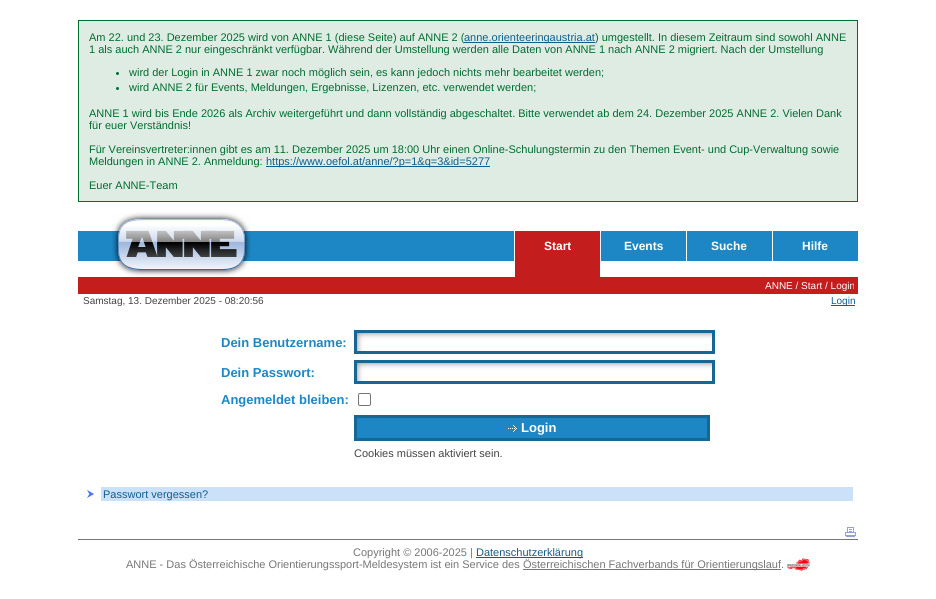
#include <cairo/cairo.h>
#include <math.h>
#include <stddef.h>

typedef struct { double x, y; const char *s; } line_t;
typedef struct { double x, y, w, h; unsigned color; } box_t;
static cairo_t *cr;

static void rgb(unsigned color)
{
	cairo_set_source_rgb(cr, (color >> 16) / 255.0, (color >> 8 & 255) / 255.0, (color & 255) / 255.0);
}

static void rrect(double x, double y, double w, double h, double r)
{
	cairo_new_sub_path(cr);
	cairo_arc(cr, x + w - r, y + h - r, r, 0, M_PI / 2);
	cairo_arc(cr, x + r, y + h - r, r, M_PI / 2, M_PI);
	cairo_arc(cr, x + r, y + r, r, M_PI, 1.5 * M_PI);
	cairo_arc(cr, x + w - r, y + r, r, 1.5 * M_PI, 2 * M_PI);
	cairo_close_path(cr);
}

static void image(const char *path, double x, double y, double w, double h)
{
	cairo_surface_t *image = cairo_image_surface_create_from_png(path);
	cairo_save(cr);
	cairo_set_source_surface(cr, image, x, y);
	cairo_rectangle(cr, x, y, w, h);
	cairo_fill(cr);
	cairo_restore(cr);
	cairo_surface_destroy(image);
}

int main(void) {
	cairo_surface_t *surface = cairo_image_surface_create(CAIRO_FORMAT_RGB24, 936, 599);
	cr = cairo_create(surface);
	cairo_font_options_t *options = cairo_font_options_create();
	cairo_font_options_set_hint_metrics(options, CAIRO_HINT_METRICS_OFF);
	cairo_font_options_set_hint_style(options, CAIRO_HINT_STYLE_NONE);
	cairo_set_font_options(cr, options);
	cairo_set_miter_limit(cr, 4);
	rgb(0xffffff);
	cairo_paint(cr);
	rgb(0xdeece4);
	cairo_rectangle(cr, 78.5, 20.5, 779, 181);
	cairo_fill_preserve(cr);
	rgb(0x006d2f);
	cairo_set_line_width(cr, 1);
	cairo_stroke(cr);
	cairo_arc(cr, 117.5, 73.5, 1.5, 0, 2 * M_PI);
	cairo_fill(cr);
	cairo_arc(cr, 117.5, 88.5, 1.5, 0, 2 * M_PI);
	cairo_fill(cr);
	rgb(0x0e5f8e);
	cairo_rectangle(cr, 266, 166, 224, 1);
	cairo_fill(cr);
	rgb(0x1c87c4);
	cairo_rectangle(cr, 78, 231, 436, 30);
	cairo_fill(cr);
	image("img/1.png", 112, 212, 139, 65);
	{
		static const box_t items[] = {
			{515, 231, 85, 46, 0xc31d1d},
			{601, 231, 85, 30, 0x1c87c4},
			{687, 231, 85, 30, 0x1c87c4},
			{773, 231, 85, 30, 0x1c87c4},
			{78, 277, 780, 17, 0xc31d1d},
			{831, 305, 24, 1, 0x0e5f8e},
		};
		for (size_t i = 0; i < sizeof items / sizeof *items; i++) {
			rgb(items[i].color);
			cairo_rectangle(cr, items[i].x, items[i].y, items[i].w, items[i].h);
			cairo_fill(cr);
		}
	}
	image("img/2.png", 357, 333, 355, 18);
	cairo_rectangle(cr, 355.5, 331.5, 358, 21);
	rgb(0x176795);
	cairo_set_line_width(cr, 3);
	cairo_stroke(cr);
	image("img/2.png", 357, 363, 355, 18);
	cairo_rectangle(cr, 355.5, 361.5, 358, 21);
	cairo_stroke(cr);
	rrect(358.5, 393.5, 12, 12, 1.5);
	rgb(0x767676);
	cairo_set_line_width(cr, 1);
	cairo_stroke(cr);
	rgb(0x1c87c4);
	cairo_rectangle(cr, 355.5, 416.5, 353, 23);
	cairo_fill_preserve(cr);
	rgb(0x176795);
	cairo_set_line_width(cr, 3);
	cairo_stroke(cr);
	image("img/3.png", 508, 425, 9, 7);
	image("img/4.png", 87, 490, 7, 8);
	rgb(0xcbe0f9);
	cairo_rectangle(cr, 101, 487, 752, 14);
	cairo_fill(cr);
	image("img/5.png", 845, 527, 11, 10);
	{
		static const box_t items[] = {
			{78, 539, 780, 1, 0x777777},
			{476, 557, 107, 1, 0x0e5f8e},
			{523, 569, 258, 1, 0x777777},
		};
		for (size_t i = 0; i < sizeof items / sizeof *items; i++) {
			rgb(items[i].color);
			cairo_rectangle(cr, items[i].x, items[i].y, items[i].w, items[i].h);
			cairo_fill(cr);
		}
	}
	image("img/6.png", 787, 558, 23, 13);
	cairo_select_font_face(cr, "Liberation Sans", CAIRO_FONT_SLANT_NORMAL, CAIRO_FONT_WEIGHT_NORMAL);
	cairo_set_font_size(cr, 11);
	rgb(0x006d2f);
	cairo_move_to(cr, 89, 41);
	cairo_show_text(cr, "Am 22. und 23. Dezember 2025 wird von ANNE 1 (diese Seite) auf ANNE 2 (");
	rgb(0x0e5f8e);
	cairo_rectangle(cr, 464, 42, 131, 1);
	cairo_fill(cr);
	cairo_move_to(cr, 464, 41);
	cairo_show_text(cr, "anne.orienteeringaustria.at");
	rgb(0x006d2f);
	{
		static const line_t items[] = {
			{595, 41, ") umgestellt. In diesem Zeitraum sind sowohl ANNE"},
			{89, 53, "1 als auch ANNE 2 nur eingeschränkt verfügbar. Während der Umstellung werden alle Daten von ANNE 1 nach ANNE 2 migriert. Nach der Umstellung"},
			{129, 76, "wird der Login in ANNE 1 zwar noch möglich sein, es kann jedoch nichts mehr bearbeitet werden;"},
			{129, 91, "wird ANNE 2 für Events, Meldungen, Ergebnisse, Lizenzen, etc. verwendet werden;"},
			{89, 117, "ANNE 1 wird bis Ende 2026 als Archiv weitergeführt und dann vollständig abgeschaltet. Bitte verwendet ab dem 24. Dezember 2025 ANNE 2. Vielen Dank"},
			{89, 129, "für euer Verständnis!"},
			{89, 153, "Für Vereinsvertreter:innen gibt es am 11. Dezember 2025 um 18:00 Uhr einen Online-Schulungstermin zu den Themen Event- und Cup-Verwaltung sowie"},
			{89, 165, "Meldungen in ANNE 2. Anmeldung:"},
		};
		for (size_t i = 0; i < sizeof items / sizeof *items; i++) {
			cairo_move_to(cr, items[i].x, items[i].y);
			cairo_show_text(cr, items[i].s);
		}
	}
	rgb(0x0e5f8e);
	cairo_move_to(cr, 266, 165);
	cairo_show_text(cr, "https://www.oefol.at/anne/?p=1&q=3&id=5277");
	rgb(0x006d2f);
	cairo_move_to(cr, 89, 189);
	cairo_show_text(cr, "Euer ANNE-Team");
	cairo_select_font_face(cr, "Liberation Sans", CAIRO_FONT_SLANT_NORMAL, CAIRO_FONT_WEIGHT_BOLD);
	cairo_set_font_size(cr, 12);
	rgb(0xffffff);
	{
		static const line_t items[] = {
			{544, 250, "Start"},
			{624, 250, "Events"},
			{711, 250, "Suche"},
			{802, 250, "Hilfe"},
		};
		for (size_t i = 0; i < sizeof items / sizeof *items; i++) {
			cairo_move_to(cr, items[i].x, items[i].y);
			cairo_show_text(cr, items[i].s);
		}
	}
	cairo_select_font_face(cr, "Liberation Sans", CAIRO_FONT_SLANT_NORMAL, CAIRO_FONT_WEIGHT_NORMAL);
	cairo_set_font_size(cr, 10);
	cairo_move_to(cr, 765, 289);
	cairo_show_text(cr, "ANNE / Start / Login");
	rgb(0x444444);
	cairo_move_to(cr, 83, 304);
	cairo_show_text(cr, "Samstag, 13. Dezember 2025 - 08:20:56");
	rgb(0x0e5f8e);
	cairo_move_to(cr, 831, 304);
	cairo_show_text(cr, "Login");
	cairo_select_font_face(cr, "Liberation Sans", CAIRO_FONT_SLANT_NORMAL, CAIRO_FONT_WEIGHT_BOLD);
	cairo_set_font_size(cr, 13);
	rgb(0x1c87c4);
	{
		static const line_t items[] = {
			{221, 347, "Dein Benutzername:"},
			{221, 377, "Dein Passwort:"},
			{221, 404, "Angemeldet bleiben:"},
		};
		for (size_t i = 0; i < sizeof items / sizeof *items; i++) {
			cairo_move_to(cr, items[i].x, items[i].y);
			cairo_show_text(cr, items[i].s);
		}
	}
	rgb(0xffffff);
	cairo_move_to(cr, 521, 432);
	cairo_show_text(cr, "Login");
	cairo_select_font_face(cr, "Liberation Sans", CAIRO_FONT_SLANT_NORMAL, CAIRO_FONT_WEIGHT_NORMAL);
	cairo_set_font_size(cr, 11);
	rgb(0x444444);
	cairo_move_to(cr, 354, 457);
	cairo_show_text(cr, "Cookies müssen aktiviert sein.");
	rgb(0x0e5f8e);
	cairo_move_to(cr, 103, 498);
	cairo_show_text(cr, "Passwort vergessen?");
	rgb(0x777777);
	cairo_move_to(cr, 353, 556);
	cairo_show_text(cr, "Copyright © 2006-2025 |");
	rgb(0x0e5f8e);
	cairo_move_to(cr, 476, 556);
	cairo_show_text(cr, "Datenschutzerklärung");
	rgb(0x777777);
	cairo_move_to(cr, 126, 568);
	cairo_show_text(cr, "ANNE - Das Österreichische Orientierungssport-Meldesystem ist ein Service des");
	cairo_move_to(cr, 523, 568);
	cairo_show_text(cr, "Österreichischen Fachverbands für Orientierungslauf.");
	cairo_surface_write_to_png(surface, "page.png");
	cairo_font_options_destroy(options);
	cairo_destroy(cr);
	cairo_surface_destroy(surface);
	return 0;
}
